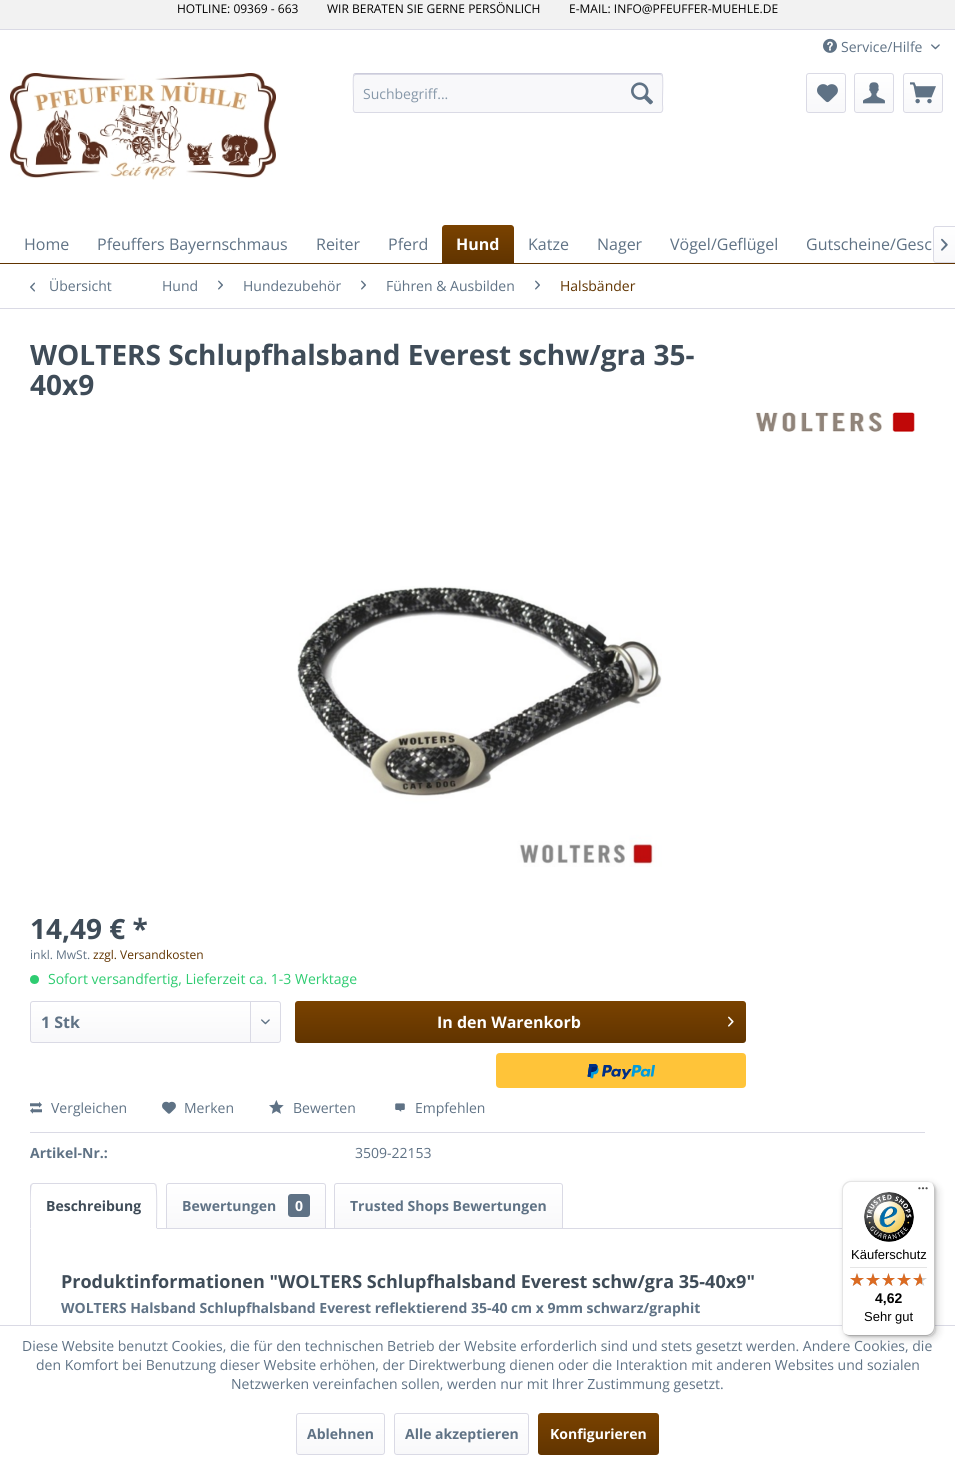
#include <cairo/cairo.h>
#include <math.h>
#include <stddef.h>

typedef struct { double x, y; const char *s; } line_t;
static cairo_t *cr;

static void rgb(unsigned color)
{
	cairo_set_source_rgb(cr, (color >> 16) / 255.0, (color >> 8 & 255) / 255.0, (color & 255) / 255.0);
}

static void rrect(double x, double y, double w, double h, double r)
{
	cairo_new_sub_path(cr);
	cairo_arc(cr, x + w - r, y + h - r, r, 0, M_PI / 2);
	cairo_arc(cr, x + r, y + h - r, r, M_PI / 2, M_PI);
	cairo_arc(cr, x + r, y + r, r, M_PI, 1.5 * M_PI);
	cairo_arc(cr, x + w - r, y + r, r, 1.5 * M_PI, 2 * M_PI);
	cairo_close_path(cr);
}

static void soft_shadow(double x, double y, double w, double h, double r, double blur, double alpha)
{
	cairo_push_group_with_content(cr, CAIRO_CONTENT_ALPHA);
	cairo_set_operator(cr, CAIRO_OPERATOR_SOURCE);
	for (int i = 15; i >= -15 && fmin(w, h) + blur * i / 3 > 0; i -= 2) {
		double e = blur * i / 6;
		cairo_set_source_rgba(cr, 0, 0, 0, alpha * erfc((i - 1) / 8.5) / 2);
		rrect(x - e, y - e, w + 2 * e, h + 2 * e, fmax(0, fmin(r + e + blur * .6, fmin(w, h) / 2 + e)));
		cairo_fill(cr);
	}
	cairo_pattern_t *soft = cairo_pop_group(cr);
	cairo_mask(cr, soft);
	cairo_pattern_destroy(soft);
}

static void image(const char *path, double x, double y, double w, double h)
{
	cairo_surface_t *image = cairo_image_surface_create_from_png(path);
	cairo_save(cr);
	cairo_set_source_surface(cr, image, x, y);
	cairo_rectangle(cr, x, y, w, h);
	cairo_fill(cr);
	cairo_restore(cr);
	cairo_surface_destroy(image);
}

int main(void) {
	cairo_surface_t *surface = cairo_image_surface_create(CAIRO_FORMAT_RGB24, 955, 1465);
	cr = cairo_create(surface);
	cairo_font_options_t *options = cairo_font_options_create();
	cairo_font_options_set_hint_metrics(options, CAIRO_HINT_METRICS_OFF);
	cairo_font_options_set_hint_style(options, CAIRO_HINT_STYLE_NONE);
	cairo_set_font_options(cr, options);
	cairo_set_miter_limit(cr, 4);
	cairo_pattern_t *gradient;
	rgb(0xf2f2f2);
	cairo_paint(cr);
	rgb(0xdadae5);
	cairo_rectangle(cr, 0, 29, 955, 1);
	cairo_fill(cr);
	rgb(0xffffff);
	cairo_rectangle(cr, 0, 30, 955, 233);
	cairo_fill(cr);
	image("img/1.png", 823, 38, 14, 15);
	image("img/2.png", 931, 44, 9, 6);
	image("img/3.png", 10, 73, 266, 107);
	rgb(0xf8f8fa);
	rrect(353, 73, 310, 40, 3);
	cairo_fill(cr);
	rgb(0xdadae5);
	cairo_new_path(cr);
	cairo_move_to(cr, 356, 75);
	cairo_line_to(cr, 660, 75);
	cairo_curve_to(cr, 661, 75, 662, 76, 662, 77);
	cairo_curve_to(cr, 662, 76, 662, 74, 660, 74);
	cairo_line_to(cr, 355, 74);
	cairo_line_to(cr, 354, 75);
	cairo_line_to(cr, 354, 77);
	cairo_curve_to(cr, 354, 76, 355, 75, 356, 75);
	cairo_close_path(cr);
	cairo_fill(cr);
	cairo_new_path(cr);
	cairo_move_to(cr, 354, 74);
	cairo_line_to(cr, 356, 73.5);
	cairo_line_to(cr, 660, 73.5);
	cairo_line_to(cr, 662, 74);
	rgb(0xcbcbdb);
	cairo_set_line_width(cr, 1);
	cairo_stroke(cr);
	cairo_new_path(cr);
	cairo_move_to(cr, 662, 74);
	cairo_curve_to(cr, 663.5, 76, 662.5, 95, 662.5, 98.5);
	cairo_line_to(cr, 662.5, 104.5);
	cairo_curve_to(cr, 662.5, 106, 664, 112.5, 660, 112.5);
	cairo_line_to(cr, 356, 112.5);
	cairo_curve_to(cr, 352, 112.5, 353.5, 106, 353.5, 104.5);
	cairo_line_to(cr, 353.5, 98.5);
	cairo_curve_to(cr, 353.5, 95, 352.5, 76, 354, 74);
	rgb(0xdadae5);
	cairo_stroke(cr);
	image("img/4.png", 631, 82, 22, 23);
	gradient = cairo_pattern_create_linear(826, 74, 826, 112);
	cairo_pattern_add_color_stop_rgba(gradient, 0, 1, 1, 1, 1);
	cairo_pattern_add_color_stop_rgba(gradient, 1, 0.973, 0.973, 0.98, 1);
	cairo_set_source(cr, gradient);
	cairo_pattern_destroy(gradient);
	rrect(807, 74, 38, 38, 2);
	cairo_fill(cr);
	rrect(806.5, 73.5, 39, 39, 2.5);
	rgb(0xdadae5);
	cairo_stroke(cr);
	image("img/5.png", 817, 84, 21, 19);
	gradient = cairo_pattern_create_linear(874, 74, 874, 112);
	cairo_pattern_add_color_stop_rgba(gradient, 0, 1, 1, 1, 1);
	cairo_pattern_add_color_stop_rgba(gradient, 1, 0.973, 0.973, 0.98, 1);
	cairo_set_source(cr, gradient);
	cairo_pattern_destroy(gradient);
	rrect(855, 74, 38, 38, 2);
	cairo_fill(cr);
	rrect(854.5, 73.5, 39, 39, 2.5);
	rgb(0xdadae5);
	cairo_stroke(cr);
	image("img/6.png", 863, 82, 22, 22);
	gradient = cairo_pattern_create_linear(923, 74, 923, 112);
	cairo_pattern_add_color_stop_rgba(gradient, 0, 1, 1, 1, 1);
	cairo_pattern_add_color_stop_rgba(gradient, 1, 0.973, 0.973, 0.98, 1);
	cairo_set_source(cr, gradient);
	cairo_pattern_destroy(gradient);
	rrect(904, 74, 38, 38, 2);
	cairo_fill(cr);
	rrect(903.5, 73.5, 39, 39, 2.5);
	rgb(0xdadae5);
	cairo_stroke(cr);
	image("img/7.png", 910, 82, 26, 22);
	rgb(0x613400);
	cairo_rectangle(cr, 0, 263, 955, 1);
	cairo_fill(cr);
	gradient = cairo_pattern_create_linear(478, 225, 478, 263);
	cairo_pattern_add_color_stop_rgba(gradient, 0, 0.478, 0.259, 0, 1);
	cairo_pattern_add_color_stop_rgba(gradient, 1, 0.38, 0.204, 0, 1);
	cairo_set_source(cr, gradient);
	cairo_pattern_destroy(gradient);
	cairo_new_path(cr);
	cairo_move_to(cr, 445, 225);
	cairo_line_to(cr, 511, 225);
	cairo_curve_to(cr, 512.5, 225, 514, 226.5, 514, 228);
	cairo_line_to(cr, 514, 263);
	cairo_line_to(cr, 442, 263);
	cairo_line_to(cr, 442, 228);
	cairo_curve_to(cr, 442, 226.5, 443.5, 225, 445, 225);
	cairo_close_path(cr);
	cairo_fill(cr);
	gradient = cairo_pattern_create_linear(945, 227, 945, 262);
	cairo_pattern_add_color_stop_rgba(gradient, 0, 1, 1, 1, 1);
	cairo_pattern_add_color_stop_rgba(gradient, 1, 0.973, 0.973, 0.98, 1);
	cairo_set_source(cr, gradient);
	cairo_pattern_destroy(gradient);
	cairo_new_path(cr);
	cairo_move_to(cr, 936, 227);
	cairo_line_to(cr, 955, 227);
	cairo_line_to(cr, 955, 262);
	cairo_line_to(cr, 936, 262);
	cairo_curve_to(cr, 935, 262, 934, 261, 934, 260);
	cairo_line_to(cr, 934, 229);
	cairo_curve_to(cr, 934, 228, 935, 227, 936, 227);
	cairo_close_path(cr);
	cairo_fill(cr);
	rgb(0xdadae5);
	cairo_set_fill_rule(cr, CAIRO_FILL_RULE_EVEN_ODD);
	cairo_new_path(cr);
	cairo_move_to(cr, 936, 226);
	cairo_line_to(cr, 955, 226);
	cairo_line_to(cr, 955, 263);
	cairo_line_to(cr, 936, 263);
	cairo_curve_to(cr, 934.5, 263, 933, 261.5, 933, 260);
	cairo_line_to(cr, 933, 229);
	cairo_curve_to(cr, 933, 227.5, 934.5, 226, 936, 226);
	cairo_close_path(cr);
	cairo_move_to(cr, 936, 227);
	cairo_line_to(cr, 955, 227);
	cairo_line_to(cr, 955, 262);
	cairo_line_to(cr, 936, 262);
	cairo_curve_to(cr, 935, 262, 934, 261, 934, 260);
	cairo_line_to(cr, 934, 229);
	cairo_curve_to(cr, 934, 228, 935, 227, 936, 227);
	cairo_close_path(cr);
	cairo_fill(cr);
	image("img/8.png", 941, 238, 7, 13);
	rgb(0xffffff);
	cairo_rectangle(cr, 0, 264, 955, 1061);
	cairo_fill(cr);
	rgb(0xdadae5);
	cairo_rectangle(cr, 0, 308, 955, 1);
	cairo_fill(cr);
	image("img/9.png", 30, 282, 5, 10);
	image("img/10.png", 218, 280, 5, 10);
	image("img/10.png", 361, 280, 5, 10);
	image("img/10.png", 535, 280, 5, 10);
	image("img/11.png", 755, 412, 160, 20);
	image("img/12.png", 297, 586, 365, 281);
	rgb(0x2ecc71);
	cairo_arc(cr, 34.5, 979.5, 4.5, 0, 2 * M_PI);
	cairo_fill(cr);
	gradient = cairo_pattern_create_linear(156, 1002, 156, 1042);
	cairo_pattern_add_color_stop_rgba(gradient, 0, 1, 1, 1, 1);
	cairo_pattern_add_color_stop_rgba(gradient, 1, 0.973, 0.973, 0.98, 1);
	cairo_set_source(cr, gradient);
	cairo_pattern_destroy(gradient);
	rrect(31, 1002, 249, 40, 2);
	cairo_fill(cr);
	rrect(30.5, 1001.5, 250, 41, 2.5);
	rgb(0xdadae5);
	cairo_stroke(cr);
	cairo_rectangle(cr, 250, 1002, 1, 40);
	cairo_fill(cr);
	image("img/13.png", 261, 1019, 9, 6);
	gradient = cairo_pattern_create_linear(521, 1001, 521, 1043);
	cairo_pattern_add_color_stop_rgba(gradient, 0, 0.478, 0.259, 0, 1);
	cairo_pattern_add_color_stop_rgba(gradient, 1, 0.38, 0.204, 0, 1);
	cairo_set_source(cr, gradient);
	cairo_pattern_destroy(gradient);
	rrect(295, 1001, 451, 42, 3);
	cairo_fill(cr);
	image("img/14.png", 728, 1016, 6, 11);
	image("img/15.png", 496, 1053, 250, 35);
	rgb(0xdadae5);
	cairo_rectangle(cr, 30, 1132, 895, 1);
	cairo_fill(cr);
	image("img/16.png", 30, 1101, 12, 13);
	image("img/17.png", 162, 1101, 14, 13);
	image("img/18.png", 269, 1100, 15, 14);
	image("img/19.png", 395, 1103, 10, 9);
	cairo_rectangle(cr, 30.5, 1228.5, 894, 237);
	cairo_stroke(cr);
	rgb(0xffffff);
	cairo_new_path(cr);
	cairo_move_to(cr, 33, 1183);
	cairo_line_to(cr, 154, 1183);
	cairo_curve_to(cr, 155.5, 1183, 157, 1184.5, 157, 1186);
	cairo_line_to(cr, 157, 1229);
	cairo_line_to(cr, 30, 1229);
	cairo_line_to(cr, 30, 1186);
	cairo_curve_to(cr, 30, 1184.5, 31.5, 1183, 33, 1183);
	cairo_close_path(cr);
	cairo_fill(cr);
	rgb(0xdadae5);
	cairo_set_fill_rule(cr, CAIRO_FILL_RULE_WINDING);
	cairo_new_path(cr);
	cairo_move_to(cr, 33, 1183);
	cairo_line_to(cr, 31, 1184);
	cairo_line_to(cr, 32, 1185);
	cairo_line_to(cr, 33, 1184);
	cairo_line_to(cr, 154, 1184);
	cairo_line_to(cr, 155, 1185);
	cairo_line_to(cr, 156, 1184);
	cairo_line_to(cr, 154, 1183);
	cairo_close_path(cr);
	cairo_fill(cr);
	cairo_new_path(cr);
	cairo_move_to(cr, 157, 1229);
	cairo_curve_to(cr, 157, 1224, 158, 1186, 156, 1184);
	cairo_line_to(cr, 155, 1185);
	cairo_curve_to(cr, 157, 1186, 156, 1223, 156, 1228);
	cairo_close_path(cr);
	cairo_fill(cr);
	rgb(0xffffff);
	cairo_new_path(cr);
	cairo_move_to(cr, 157, 1229);
	cairo_line_to(cr, 156, 1228);
	cairo_line_to(cr, 31, 1228);
	cairo_line_to(cr, 30, 1229);
	cairo_close_path(cr);
	cairo_fill(cr);
	rgb(0xdadae5);
	cairo_new_path(cr);
	cairo_move_to(cr, 30, 1229);
	cairo_line_to(cr, 31, 1228);
	cairo_curve_to(cr, 31, 1223, 30, 1186, 32, 1185);
	cairo_line_to(cr, 31, 1184);
	cairo_line_to(cr, 30, 1186);
	cairo_close_path(cr);
	cairo_fill(cr);
	gradient = cairo_pattern_create_linear(246, 1184, 246, 1228);
	cairo_pattern_add_color_stop_rgba(gradient, 0, 1, 1, 1, 1);
	cairo_pattern_add_color_stop_rgba(gradient, 1, 0.973, 0.973, 0.98, 1);
	cairo_set_source(cr, gradient);
	cairo_pattern_destroy(gradient);
	cairo_new_path(cr);
	cairo_move_to(cr, 169, 1184);
	cairo_line_to(cr, 323, 1184);
	cairo_curve_to(cr, 324, 1184, 325, 1185, 325, 1186);
	cairo_line_to(cr, 325, 1228);
	cairo_line_to(cr, 167, 1228);
	cairo_line_to(cr, 167, 1186);
	cairo_curve_to(cr, 167, 1185, 168, 1184, 169, 1184);
	cairo_close_path(cr);
	cairo_fill(cr);
	cairo_new_path(cr);
	cairo_move_to(cr, 169, 1183.5);
	cairo_line_to(cr, 323, 1183.5);
	cairo_curve_to(cr, 324.5, 1183.5, 325.5, 1184.5, 325.5, 1186);
	cairo_line_to(cr, 325.5, 1228.5);
	cairo_line_to(cr, 166.5, 1228.5);
	cairo_line_to(cr, 166.5, 1186);
	cairo_curve_to(cr, 166.5, 1184.5, 167.5, 1183.5, 169, 1183.5);
	cairo_close_path(cr);
	rgb(0xdadae5);
	cairo_stroke(cr);
	rgb(0x5f7285);
	rrect(288, 1194, 22, 23, 3);
	cairo_fill(cr);
	gradient = cairo_pattern_create_linear(449, 1184, 449, 1228);
	cairo_pattern_add_color_stop_rgba(gradient, 0, 1, 1, 1, 1);
	cairo_pattern_add_color_stop_rgba(gradient, 1, 0.973, 0.973, 0.98, 1);
	cairo_set_source(cr, gradient);
	cairo_pattern_destroy(gradient);
	cairo_new_path(cr);
	cairo_move_to(cr, 337, 1184);
	cairo_line_to(cr, 560, 1184);
	cairo_curve_to(cr, 561, 1184, 562, 1185, 562, 1186);
	cairo_line_to(cr, 562, 1228);
	cairo_line_to(cr, 335, 1228);
	cairo_line_to(cr, 335, 1186);
	cairo_curve_to(cr, 335, 1185, 336, 1184, 337, 1184);
	cairo_close_path(cr);
	cairo_fill(cr);
	cairo_new_path(cr);
	cairo_move_to(cr, 337, 1183.5);
	cairo_line_to(cr, 560, 1183.5);
	cairo_curve_to(cr, 561.5, 1183.5, 562.5, 1184.5, 562.5, 1186);
	cairo_line_to(cr, 562.5, 1228.5);
	cairo_line_to(cr, 334.5, 1228.5);
	cairo_line_to(cr, 334.5, 1186);
	cairo_curve_to(cr, 334.5, 1184.5, 335.5, 1183.5, 337, 1183.5);
	cairo_close_path(cr);
	rgb(0xdadae5);
	cairo_stroke(cr);
	rgb(0xffffff);
	cairo_rectangle(cr, 0, 1326, 955, 139);
	cairo_fill(cr);
	rgb(0xdadae5);
	cairo_rectangle(cr, 0, 1325, 955, 1);
	cairo_fill(cr);
	rgb(0x000000);
	soft_shadow(845, 1184, 93, 155, 8, 4, 0.15);
	soft_shadow(843, 1182, 93, 155, 8, 1, 0.15);
	rgb(0xffffff);
	rrect(842, 1181, 93, 155, 8);
	cairo_fill(cr);
	rgb(0xe5e5e5);
	cairo_new_path(cr);
	cairo_move_to(cr, 851, 1182);
	cairo_line_to(cr, 928, 1182);
	cairo_curve_to(cr, 930, 1182, 932, 1183, 934, 1185);
	cairo_curve_to(cr, 932, 1183, 930, 1181, 927, 1181);
	cairo_line_to(cr, 850, 1181);
	cairo_curve_to(cr, 846, 1181, 842, 1185, 842, 1189);
	cairo_line_to(cr, 842, 1328);
	cairo_curve_to(cr, 842, 1331, 844, 1333, 846, 1335);
	cairo_curve_to(cr, 844, 1333, 843, 1331, 843, 1329);
	cairo_line_to(cr, 843, 1190);
	cairo_curve_to(cr, 843, 1186, 847, 1182, 851, 1182);
	cairo_close_path(cr);
	cairo_fill(cr);
	rgb(0xcccccc);
	cairo_new_path(cr);
	cairo_move_to(cr, 843, 1332);
	cairo_curve_to(cr, 845, 1334, 847, 1336, 850, 1336);
	cairo_line_to(cr, 927, 1336);
	cairo_curve_to(cr, 931, 1336, 935, 1332, 935, 1328);
	cairo_line_to(cr, 935, 1189);
	cairo_curve_to(cr, 935, 1186, 933, 1184, 931, 1182);
	cairo_curve_to(cr, 933, 1184, 934, 1186, 934, 1188);
	cairo_line_to(cr, 934, 1327);
	cairo_curve_to(cr, 934, 1331, 930, 1335, 926, 1335);
	cairo_line_to(cr, 849, 1335);
	cairo_curve_to(cr, 847, 1335, 845, 1334, 843, 1332);
	cairo_close_path(cr);
	cairo_fill(cr);
	cairo_set_source_rgba(cr, 0.196, 0.196, 0.196, 0.2);
	cairo_new_path(cr);
	cairo_move_to(cr, 844, 1333);
	cairo_curve_to(cr, 845, 1335, 848, 1336, 850, 1336);
	cairo_line_to(cr, 927, 1336);
	cairo_curve_to(cr, 931, 1336, 935, 1332, 935, 1328);
	cairo_line_to(cr, 935, 1189);
	cairo_curve_to(cr, 935, 1187, 934, 1184, 932, 1183);
	cairo_curve_to(cr, 933, 1184, 934, 1186, 934, 1188);
	cairo_line_to(cr, 934, 1327);
	cairo_curve_to(cr, 934, 1332, 931, 1335, 926, 1335);
	cairo_line_to(cr, 849, 1335);
	cairo_curve_to(cr, 847, 1335, 845, 1334, 844, 1333);
	cairo_close_path(cr);
	cairo_fill(cr);
	cairo_set_source_rgba(cr, 1, 1, 1, 0.3);
	cairo_new_path(cr);
	cairo_move_to(cr, 926, 1336);
	cairo_line_to(cr, 927, 1336);
	cairo_curve_to(cr, 931, 1336, 935, 1332, 935, 1328);
	cairo_line_to(cr, 935, 1189);
	cairo_curve_to(cr, 935, 1187, 934, 1184, 932, 1183);
	cairo_curve_to(cr, 933, 1184, 934, 1186, 934, 1188);
	cairo_line_to(cr, 934, 1328);
	cairo_curve_to(cr, 934, 1332, 931, 1336, 926, 1336);
	cairo_close_path(cr);
	cairo_fill(cr);
	image("img/20.png", 918, 1187, 10, 3);
	image("img/21.png", 864, 1192, 50, 50);
	rgb(0xe5e5e5);
	cairo_rectangle(cr, 850, 1267, 77, 1);
	cairo_fill(cr);
	image("img/22.png", 850, 1273, 14, 13);
	image("img/22.png", 866, 1273, 14, 13);
	image("img/23.png", 882, 1273, 13, 13);
	image("img/22.png", 897, 1273, 14, 13);
	image("img/22.png", 913, 1273, 14, 13);
	image("img/24.png", 850, 1273, 14, 13);
	image("img/24.png", 866, 1273, 14, 13);
	image("img/25.png", 882, 1273, 13, 13);
	image("img/24.png", 897, 1273, 14, 13);
	image("img/26.png", 913, 1273, 9, 13);
	gradient = cairo_pattern_create_linear(341, 1414, 341, 1454);
	cairo_pattern_add_color_stop_rgba(gradient, 0, 1, 1, 1, 1);
	cairo_pattern_add_color_stop_rgba(gradient, 1, 0.973, 0.973, 0.98, 1);
	cairo_set_source(cr, gradient);
	cairo_pattern_destroy(gradient);
	rrect(297, 1414, 87, 40, 2);
	cairo_fill(cr);
	rrect(296.5, 1413.5, 88, 41, 2.5);
	rgb(0xdadae5);
	cairo_stroke(cr);
	gradient = cairo_pattern_create_linear(462, 1414, 462, 1454);
	cairo_pattern_add_color_stop_rgba(gradient, 0, 1, 1, 1, 1);
	cairo_pattern_add_color_stop_rgba(gradient, 1, 0.973, 0.973, 0.98, 1);
	cairo_set_source(cr, gradient);
	cairo_pattern_destroy(gradient);
	rrect(395, 1414, 133, 40, 2);
	cairo_fill(cr);
	rrect(394.5, 1413.5, 134, 41, 2.5);
	rgb(0xdadae5);
	cairo_stroke(cr);
	gradient = cairo_pattern_create_linear(599, 1413, 599, 1455);
	cairo_pattern_add_color_stop_rgba(gradient, 0, 0.478, 0.259, 0, 1);
	cairo_pattern_add_color_stop_rgba(gradient, 1, 0.38, 0.204, 0, 1);
	cairo_set_source(cr, gradient);
	cairo_pattern_destroy(gradient);
	rrect(538, 1413, 121, 42, 3);
	cairo_fill(cr);
	cairo_select_font_face(cr, "Open Sans", CAIRO_FONT_SLANT_NORMAL, CAIRO_FONT_WEIGHT_NORMAL);
	cairo_set_font_size(cr, 12);
	rgb(0x000000);
	{
		static const line_t items[] = {
			{177, 13, "HOTLINE: 09369 - 663"},
			{327, 13, "WIR BERATEN SIE GERNE PERSÖNLICH"},
			{569, 13, "E-MAIL: INFO@PFEUFFER-MUEHLE.DE"},
		};
		for (size_t i = 0; i < sizeof items / sizeof *items; i++) {
			cairo_move_to(cr, items[i].x, items[i].y);
			cairo_show_text(cr, items[i].s);
		}
	}
	cairo_set_font_size(cr, 14);
	rgb(0x5f7285);
	cairo_move_to(cr, 841, 52);
	cairo_show_text(cr, "Service/Hilfe");
	rgb(0x8798a9);
	cairo_move_to(cr, 363, 99);
	cairo_show_text(cr, "Suchbegriff...");
	cairo_set_font_size(cr, 16);
	rgb(0x5f7285);
	{
		static const line_t items[] = {
			{24, 250, "Home"},
			{97, 250, "Pfeuffers Bayernschmaus"},
			{316, 250, "Reiter"},
			{388, 250, "Pferd"},
		};
		for (size_t i = 0; i < sizeof items / sizeof *items; i++) {
			cairo_move_to(cr, items[i].x, items[i].y);
			cairo_show_text(cr, items[i].s);
		}
	}
	cairo_select_font_face(cr, "Open Sans", CAIRO_FONT_SLANT_NORMAL, CAIRO_FONT_WEIGHT_BOLD);
	rgb(0xffffff);
	cairo_move_to(cr, 456, 250);
	cairo_show_text(cr, "Hund");
	cairo_select_font_face(cr, "Open Sans", CAIRO_FONT_SLANT_NORMAL, CAIRO_FONT_WEIGHT_NORMAL);
	rgb(0x5f7285);
	{
		static const line_t items[] = {
			{528, 250, "Katze"},
			{597, 250, "Nager"},
			{670, 250, "Vögel/Geflügel"},
			{806, 250, "Gutscheine/Gesc"},
		};
		for (size_t i = 0; i < sizeof items / sizeof *items; i++) {
			cairo_move_to(cr, items[i].x, items[i].y);
			cairo_show_text(cr, items[i].s);
		}
	}
	cairo_set_font_size(cr, 14);
	{
		static const line_t items[] = {
			{49, 291, "Übersicht"},
			{162, 291, "Hund"},
			{243, 291, "Hundezubehör"},
			{386, 291, "Führen & Ausbilden"},
		};
		for (size_t i = 0; i < sizeof items / sizeof *items; i++) {
			cairo_move_to(cr, items[i].x, items[i].y);
			cairo_show_text(cr, items[i].s);
		}
	}
	rgb(0x613400);
	cairo_move_to(cr, 560, 291);
	cairo_show_text(cr, "Halsbänder");
	cairo_select_font_face(cr, "Open Sans", CAIRO_FONT_SLANT_NORMAL, CAIRO_FONT_WEIGHT_BOLD);
	cairo_set_font_size(cr, 28);
	rgb(0x3f4c58);
	{
		static const line_t items[] = {
			{30, 365, "WOLTERS Schlupfhalsband Everest schw/gra 35-"},
			{30, 395, "40x9"},
			{30, 939, "14,49 € *"},
		};
		for (size_t i = 0; i < sizeof items / sizeof *items; i++) {
			cairo_move_to(cr, items[i].x, items[i].y);
			cairo_show_text(cr, items[i].s);
		}
	}
	cairo_select_font_face(cr, "Open Sans", CAIRO_FONT_SLANT_NORMAL, CAIRO_FONT_WEIGHT_NORMAL);
	cairo_set_font_size(cr, 12);
	rgb(0x5f7285);
	cairo_move_to(cr, 30, 959);
	cairo_show_text(cr, "inkl. MwSt.");
	rgb(0x613400);
	cairo_move_to(cr, 93, 959);
	cairo_show_text(cr, "zzgl. Versandkosten");
	cairo_set_font_size(cr, 14);
	rgb(0x2ecc71);
	cairo_move_to(cr, 48, 984);
	cairo_show_text(cr, "Sofort versandfertig, Lieferzeit ca. 1-3 Werktage");
	cairo_select_font_face(cr, "Open Sans", CAIRO_FONT_SLANT_NORMAL, CAIRO_FONT_WEIGHT_BOLD);
	cairo_set_font_size(cr, 16);
	rgb(0x5f7285);
	cairo_move_to(cr, 41, 1028);
	cairo_show_text(cr, "1 Stk");
	rgb(0xffffff);
	cairo_move_to(cr, 437, 1028);
	cairo_show_text(cr, "In den Warenkorb");
	cairo_select_font_face(cr, "Open Sans", CAIRO_FONT_SLANT_NORMAL, CAIRO_FONT_WEIGHT_NORMAL);
	cairo_set_font_size(cr, 14);
	rgb(0x5f7285);
	{
		static const line_t items[] = {
			{51, 1113, "Vergleichen"},
			{184, 1113, "Merken"},
			{293, 1113, "Bewerten"},
			{415, 1113, "Empfehlen"},
		};
		for (size_t i = 0; i < sizeof items / sizeof *items; i++) {
			cairo_move_to(cr, items[i].x, items[i].y);
			cairo_show_text(cr, items[i].s);
		}
	}
	cairo_select_font_face(cr, "Open Sans", CAIRO_FONT_SLANT_NORMAL, CAIRO_FONT_WEIGHT_BOLD);
	cairo_move_to(cr, 30, 1158);
	cairo_show_text(cr, "Artikel-Nr.:");
	cairo_select_font_face(cr, "Open Sans", CAIRO_FONT_SLANT_NORMAL, CAIRO_FONT_WEIGHT_NORMAL);
	cairo_move_to(cr, 355, 1158);
	cairo_show_text(cr, "3509-22153");
	cairo_select_font_face(cr, "Open Sans", CAIRO_FONT_SLANT_NORMAL, CAIRO_FONT_WEIGHT_BOLD);
	rgb(0x3f4c58);
	cairo_move_to(cr, 46, 1211);
	cairo_show_text(cr, "Beschreibung");
	rgb(0x5f7285);
	cairo_move_to(cr, 182, 1211);
	cairo_show_text(cr, "Bewertungen");
	rgb(0xffffff);
	cairo_move_to(cr, 295, 1211);
	cairo_show_text(cr, "0");
	rgb(0x5f7285);
	cairo_move_to(cr, 350, 1211);
	cairo_show_text(cr, "Trusted Shops Bewertungen");
	cairo_set_font_size(cr, 18);
	rgb(0x3f4c58);
	cairo_move_to(cr, 61, 1288);
	cairo_show_text(cr, "Produktinformationen \"WOLTERS Schlupfhalsband Everest schw/gra 35-40x9\"");
	cairo_set_font_size(cr, 14);
	rgb(0x5f7285);
	cairo_move_to(cr, 61, 1313);
	cairo_show_text(cr, "WOLTERS Halsband Schlupfhalsband Everest reflektierend 35-40 cm x 9mm schwarz/graphit");
	cairo_select_font_face(cr, "Liberation Sans", CAIRO_FONT_SLANT_NORMAL, CAIRO_FONT_WEIGHT_NORMAL);
	cairo_set_font_size(cr, 13);
	rgb(0x000000);
	cairo_move_to(cr, 851, 1259);
	cairo_show_text(cr, "Käuferschutz");
	cairo_select_font_face(cr, "Liberation Sans", CAIRO_FONT_SLANT_NORMAL, CAIRO_FONT_WEIGHT_BOLD);
	cairo_set_font_size(cr, 14);
	cairo_move_to(cr, 875, 1303);
	cairo_show_text(cr, "4,62");
	cairo_select_font_face(cr, "Liberation Sans", CAIRO_FONT_SLANT_NORMAL, CAIRO_FONT_WEIGHT_NORMAL);
	cairo_set_font_size(cr, 13);
	cairo_move_to(cr, 864, 1321);
	cairo_show_text(cr, "Sehr gut");
	cairo_select_font_face(cr, "Open Sans", CAIRO_FONT_SLANT_NORMAL, CAIRO_FONT_WEIGHT_NORMAL);
	cairo_set_font_size(cr, 14);
	rgb(0x5f7285);
	{
		static const line_t items[] = {
			{22, 1351, "Diese Website benutzt Cookies, die für den technischen Betrieb der Website erforderlich sind und stets gesetzt werden. Andere Cookies, die"},
			{36, 1370, "den Komfort bei Benutzung dieser Website erhöhen, der Direktwerbung dienen oder die Interaktion mit anderen Websites und sozialen"},
			{231, 1389, "Netzwerken vereinfachen sollen, werden nur mit Ihrer Zustimmung gesetzt."},
		};
		for (size_t i = 0; i < sizeof items / sizeof *items; i++) {
			cairo_move_to(cr, items[i].x, items[i].y);
			cairo_show_text(cr, items[i].s);
		}
	}
	cairo_select_font_face(cr, "Open Sans", CAIRO_FONT_SLANT_NORMAL, CAIRO_FONT_WEIGHT_BOLD);
	cairo_move_to(cr, 307, 1439);
	cairo_show_text(cr, "Ablehnen");
	cairo_move_to(cr, 405, 1439);
	cairo_show_text(cr, "Alle akzeptieren");
	rgb(0xffffff);
	cairo_move_to(cr, 550, 1439);
	cairo_show_text(cr, "Konfigurieren");
	cairo_surface_write_to_png(surface, "page.png");
	cairo_font_options_destroy(options);
	cairo_destroy(cr);
	cairo_surface_destroy(surface);
	return 0;
}
